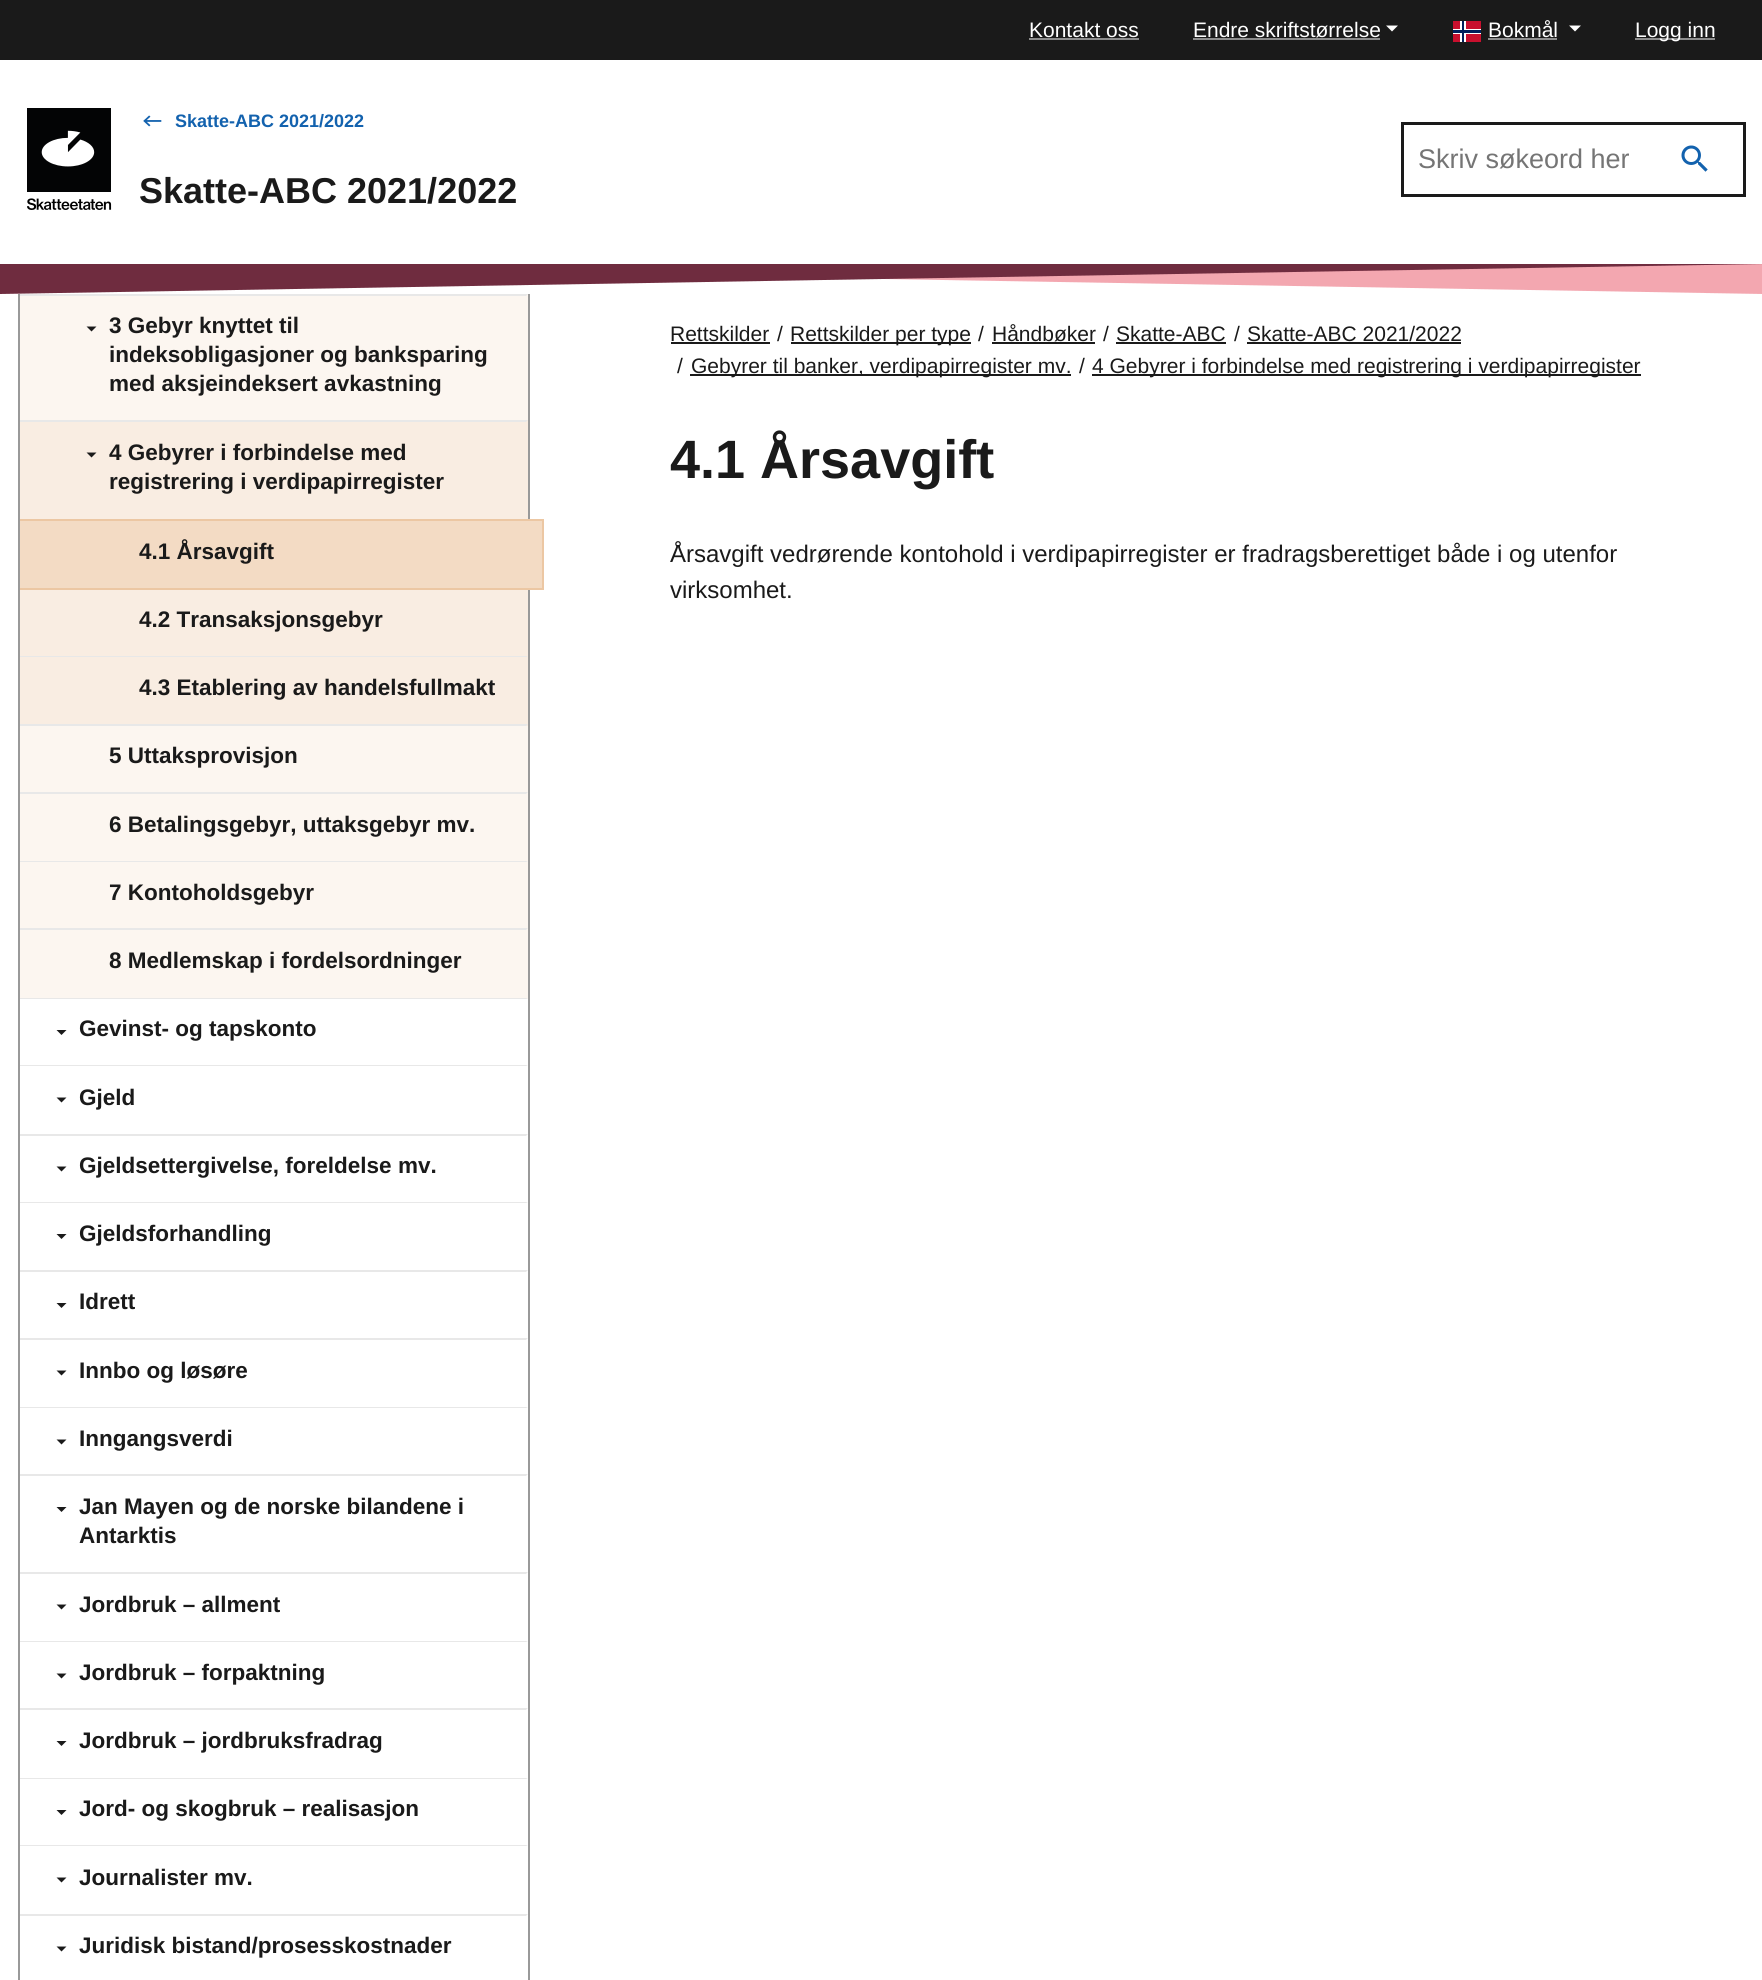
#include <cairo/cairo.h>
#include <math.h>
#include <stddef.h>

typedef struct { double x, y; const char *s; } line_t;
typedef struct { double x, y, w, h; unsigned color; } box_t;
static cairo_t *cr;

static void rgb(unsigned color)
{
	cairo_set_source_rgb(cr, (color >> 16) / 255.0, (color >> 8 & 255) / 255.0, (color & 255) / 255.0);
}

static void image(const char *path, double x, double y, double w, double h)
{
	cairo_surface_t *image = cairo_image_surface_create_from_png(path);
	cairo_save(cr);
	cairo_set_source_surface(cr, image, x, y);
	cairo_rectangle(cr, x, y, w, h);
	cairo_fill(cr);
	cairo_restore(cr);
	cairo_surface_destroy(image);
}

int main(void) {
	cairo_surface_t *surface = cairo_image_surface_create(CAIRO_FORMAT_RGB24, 1762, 1980);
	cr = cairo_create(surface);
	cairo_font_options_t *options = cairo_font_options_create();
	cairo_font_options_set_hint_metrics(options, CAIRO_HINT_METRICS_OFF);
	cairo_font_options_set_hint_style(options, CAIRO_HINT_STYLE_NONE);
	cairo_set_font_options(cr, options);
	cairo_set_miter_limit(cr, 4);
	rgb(0xffffff);
	cairo_paint(cr);
	{
		static const box_t items[] = {
			{0, 0, 1762, 60, 0x1a1a1a},
			{1029, 38, 110, 2, 0x8d8d8d},
			{1193, 38, 187, 2, 0x8d8d8d},
		};
		for (size_t i = 0; i < sizeof items / sizeof *items; i++) {
			rgb(items[i].color);
			cairo_rectangle(cr, items[i].x, items[i].y, items[i].w, items[i].h);
			cairo_fill(cr);
		}
	}
	rgb(0xffffff);
	cairo_new_path(cr);
	cairo_move_to(cr, 1386, 25.5);
	cairo_line_to(cr, 1398, 25.5);
	cairo_line_to(cr, 1392, 31.5);
	cairo_close_path(cr);
	cairo_fill(cr);
	{
		static const box_t items[] = {
			{1453, 21, 28, 21, 0xc8102e},
			{1488, 38, 69, 2, 0x8d8d8d},
			{1460, 21, 6, 21, 0xffffff},
			{1453, 29, 28, 5, 0xffffff},
			{1462, 21, 2, 21, 0x00205b},
		};
		for (size_t i = 0; i < sizeof items / sizeof *items; i++) {
			rgb(items[i].color);
			cairo_rectangle(cr, items[i].x, items[i].y, items[i].w, items[i].h);
			cairo_fill(cr);
		}
	}
	rgb(0xffffff);
	cairo_new_path(cr);
	cairo_move_to(cr, 1569, 25.5);
	cairo_line_to(cr, 1581, 25.5);
	cairo_line_to(cr, 1575, 31.5);
	cairo_close_path(cr);
	cairo_fill(cr);
	rgb(0x00205b);
	cairo_rectangle(cr, 1453, 30, 28, 3);
	cairo_fill(cr);
	rgb(0x8d8d8d);
	cairo_rectangle(cr, 1635, 38, 80, 2);
	cairo_fill(cr);
	image("img/1.png", 27, 108, 85, 102);
	image("img/2.png", 143, 115, 19, 12);
	cairo_rectangle(cr, 1402.5, 123.5, 342, 72);
	rgb(0x1a1a1a);
	cairo_set_line_width(cr, 3);
	cairo_stroke(cr);
	image("img/3.png", 1681, 145, 27, 27);
	rgb(0xf3a7b0);
	cairo_new_path(cr);
	cairo_move_to(cr, 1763, 264);
	cairo_line_to(cr, 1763, 294);
	cairo_line_to(cr, 0, 264);
	cairo_close_path(cr);
	cairo_fill(cr);
	rgb(0x6f2c3f);
	cairo_new_path(cr);
	cairo_move_to(cr, 0, 264);
	cairo_line_to(cr, 0, 294);
	cairo_line_to(cr, 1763, 264);
	cairo_close_path(cr);
	cairo_fill(cr);
	{
		static const box_t items[] = {
			{18, 294, 2, 1686, 0x999999},
			{528, 294, 2, 1686, 0x999999},
			{20, 294, 508, 705, 0xfcf6f0},
		};
		for (size_t i = 0; i < sizeof items / sizeof *items; i++) {
			rgb(items[i].color);
			cairo_rectangle(cr, items[i].x, items[i].y, items[i].w, items[i].h);
			cairo_fill(cr);
		}
	}
	rgb(0xe8e8e8);
	cairo_new_path(cr);
	cairo_move_to(cr, 20, 294);
	cairo_line_to(cr, 528, 294);
	cairo_line_to(cr, 526, 296);
	cairo_line_to(cr, 20, 296);
	cairo_close_path(cr);
	cairo_fill(cr);
	rgb(0x1a1a1a);
	cairo_new_path(cr);
	cairo_move_to(cr, 86.5, 326.5);
	cairo_line_to(cr, 91.5, 331.5);
	cairo_line_to(cr, 96.5, 326.5);
	cairo_close_path(cr);
	cairo_fill(cr);
	rgb(0xf9ede2);
	cairo_rectangle(cr, 20, 420, 508, 306);
	cairo_fill(cr);
	rgb(0xe8e8e8);
	cairo_new_path(cr);
	cairo_move_to(cr, 20, 420);
	cairo_line_to(cr, 528, 420);
	cairo_line_to(cr, 526, 422);
	cairo_line_to(cr, 20, 422);
	cairo_close_path(cr);
	cairo_fill(cr);
	rgb(0x1a1a1a);
	cairo_new_path(cr);
	cairo_move_to(cr, 86.5, 452.5);
	cairo_line_to(cr, 91.5, 457.5);
	cairo_line_to(cr, 96.5, 452.5);
	cairo_close_path(cr);
	cairo_fill(cr);
	{
		static const box_t items[] = {
			{20, 521, 522, 67, 0xf3dbc4},
			{20, 519, 523, 2, 0xecc7a3},
			{542, 519, 2, 71, 0xecc7a3},
			{20, 588, 523, 2, 0xecc7a3},
		};
		for (size_t i = 0; i < sizeof items / sizeof *items; i++) {
			rgb(items[i].color);
			cairo_rectangle(cr, items[i].x, items[i].y, items[i].w, items[i].h);
			cairo_fill(cr);
		}
	}
	rgb(0xe8e8e8);
	cairo_new_path(cr);
	cairo_move_to(cr, 20, 656);
	cairo_line_to(cr, 528, 656);
	cairo_line_to(cr, 526, 657);
	cairo_line_to(cr, 20, 657);
	cairo_close_path(cr);
	cairo_fill(cr);
	cairo_new_path(cr);
	cairo_move_to(cr, 20, 724);
	cairo_line_to(cr, 528, 724);
	cairo_line_to(cr, 526, 726);
	cairo_line_to(cr, 20, 726);
	cairo_close_path(cr);
	cairo_fill(cr);
	cairo_new_path(cr);
	cairo_move_to(cr, 20, 792);
	cairo_line_to(cr, 528, 792);
	cairo_line_to(cr, 526, 794);
	cairo_line_to(cr, 20, 794);
	cairo_close_path(cr);
	cairo_fill(cr);
	cairo_new_path(cr);
	cairo_move_to(cr, 20, 861);
	cairo_line_to(cr, 528, 861);
	cairo_line_to(cr, 526, 862);
	cairo_line_to(cr, 20, 862);
	cairo_close_path(cr);
	cairo_fill(cr);
	cairo_new_path(cr);
	cairo_move_to(cr, 20, 928);
	cairo_line_to(cr, 528, 928);
	cairo_line_to(cr, 526, 930);
	cairo_line_to(cr, 20, 930);
	cairo_close_path(cr);
	cairo_fill(cr);
	cairo_new_path(cr);
	cairo_move_to(cr, 20, 998);
	cairo_line_to(cr, 528, 998);
	cairo_line_to(cr, 526, 999);
	cairo_line_to(cr, 20, 999);
	cairo_close_path(cr);
	cairo_fill(cr);
	rgb(0x1a1a1a);
	cairo_new_path(cr);
	cairo_move_to(cr, 56.5, 1030);
	cairo_line_to(cr, 61.5, 1035);
	cairo_line_to(cr, 66.5, 1030);
	cairo_close_path(cr);
	cairo_fill(cr);
	rgb(0xe8e8e8);
	cairo_new_path(cr);
	cairo_move_to(cr, 20, 1065);
	cairo_line_to(cr, 528, 1065);
	cairo_line_to(cr, 526, 1066);
	cairo_line_to(cr, 20, 1066);
	cairo_close_path(cr);
	cairo_fill(cr);
	rgb(0x1a1a1a);
	cairo_new_path(cr);
	cairo_move_to(cr, 56.5, 1097.5);
	cairo_line_to(cr, 61.5, 1102.5);
	cairo_line_to(cr, 66.5, 1097.5);
	cairo_close_path(cr);
	cairo_fill(cr);
	rgb(0xe8e8e8);
	cairo_new_path(cr);
	cairo_move_to(cr, 20, 1134);
	cairo_line_to(cr, 528, 1134);
	cairo_line_to(cr, 526, 1136);
	cairo_line_to(cr, 20, 1136);
	cairo_close_path(cr);
	cairo_fill(cr);
	rgb(0x1a1a1a);
	cairo_new_path(cr);
	cairo_move_to(cr, 56.5, 1166.5);
	cairo_line_to(cr, 61.5, 1171.5);
	cairo_line_to(cr, 66.5, 1166.5);
	cairo_close_path(cr);
	cairo_fill(cr);
	rgb(0xe8e8e8);
	cairo_new_path(cr);
	cairo_move_to(cr, 20, 1202);
	cairo_line_to(cr, 528, 1202);
	cairo_line_to(cr, 526, 1203);
	cairo_line_to(cr, 20, 1203);
	cairo_close_path(cr);
	cairo_fill(cr);
	rgb(0x1a1a1a);
	cairo_new_path(cr);
	cairo_move_to(cr, 56.5, 1234);
	cairo_line_to(cr, 61.5, 1239);
	cairo_line_to(cr, 66.5, 1234);
	cairo_close_path(cr);
	cairo_fill(cr);
	rgb(0xe8e8e8);
	cairo_new_path(cr);
	cairo_move_to(cr, 20, 1270);
	cairo_line_to(cr, 528, 1270);
	cairo_line_to(cr, 526, 1272);
	cairo_line_to(cr, 20, 1272);
	cairo_close_path(cr);
	cairo_fill(cr);
	rgb(0x1a1a1a);
	cairo_new_path(cr);
	cairo_move_to(cr, 56.5, 1303);
	cairo_line_to(cr, 61.5, 1308);
	cairo_line_to(cr, 66.5, 1303);
	cairo_close_path(cr);
	cairo_fill(cr);
	rgb(0xe8e8e8);
	cairo_new_path(cr);
	cairo_move_to(cr, 20, 1338);
	cairo_line_to(cr, 528, 1338);
	cairo_line_to(cr, 526, 1340);
	cairo_line_to(cr, 20, 1340);
	cairo_close_path(cr);
	cairo_fill(cr);
	rgb(0x1a1a1a);
	cairo_new_path(cr);
	cairo_move_to(cr, 56.5, 1370.5);
	cairo_line_to(cr, 61.5, 1375.5);
	cairo_line_to(cr, 66.5, 1370.5);
	cairo_close_path(cr);
	cairo_fill(cr);
	rgb(0xe8e8e8);
	cairo_new_path(cr);
	cairo_move_to(cr, 20, 1407);
	cairo_line_to(cr, 528, 1407);
	cairo_line_to(cr, 526, 1408);
	cairo_line_to(cr, 20, 1408);
	cairo_close_path(cr);
	cairo_fill(cr);
	rgb(0x1a1a1a);
	cairo_new_path(cr);
	cairo_move_to(cr, 56.5, 1439.5);
	cairo_line_to(cr, 61.5, 1444.5);
	cairo_line_to(cr, 66.5, 1439.5);
	cairo_close_path(cr);
	cairo_fill(cr);
	rgb(0xe8e8e8);
	cairo_new_path(cr);
	cairo_move_to(cr, 20, 1474);
	cairo_line_to(cr, 528, 1474);
	cairo_line_to(cr, 526, 1476);
	cairo_line_to(cr, 20, 1476);
	cairo_close_path(cr);
	cairo_fill(cr);
	rgb(0x1a1a1a);
	cairo_new_path(cr);
	cairo_move_to(cr, 56.5, 1507);
	cairo_line_to(cr, 61.5, 1512);
	cairo_line_to(cr, 66.5, 1507);
	cairo_close_path(cr);
	cairo_fill(cr);
	rgb(0xe8e8e8);
	cairo_new_path(cr);
	cairo_move_to(cr, 20, 1572);
	cairo_line_to(cr, 528, 1572);
	cairo_line_to(cr, 526, 1574);
	cairo_line_to(cr, 20, 1574);
	cairo_close_path(cr);
	cairo_fill(cr);
	rgb(0x1a1a1a);
	cairo_new_path(cr);
	cairo_move_to(cr, 56.5, 1604.5);
	cairo_line_to(cr, 61.5, 1609.5);
	cairo_line_to(cr, 66.5, 1604.5);
	cairo_close_path(cr);
	cairo_fill(cr);
	rgb(0xe8e8e8);
	cairo_new_path(cr);
	cairo_move_to(cr, 20, 1641);
	cairo_line_to(cr, 528, 1641);
	cairo_line_to(cr, 526, 1642);
	cairo_line_to(cr, 20, 1642);
	cairo_close_path(cr);
	cairo_fill(cr);
	rgb(0x1a1a1a);
	cairo_new_path(cr);
	cairo_move_to(cr, 56.5, 1673.5);
	cairo_line_to(cr, 61.5, 1678.5);
	cairo_line_to(cr, 66.5, 1673.5);
	cairo_close_path(cr);
	cairo_fill(cr);
	rgb(0xe8e8e8);
	cairo_new_path(cr);
	cairo_move_to(cr, 20, 1708);
	cairo_line_to(cr, 528, 1708);
	cairo_line_to(cr, 526, 1710);
	cairo_line_to(cr, 20, 1710);
	cairo_close_path(cr);
	cairo_fill(cr);
	rgb(0x1a1a1a);
	cairo_new_path(cr);
	cairo_move_to(cr, 56.5, 1741);
	cairo_line_to(cr, 61.5, 1746);
	cairo_line_to(cr, 66.5, 1741);
	cairo_close_path(cr);
	cairo_fill(cr);
	rgb(0xe8e8e8);
	cairo_new_path(cr);
	cairo_move_to(cr, 20, 1778);
	cairo_line_to(cr, 528, 1778);
	cairo_line_to(cr, 526, 1779);
	cairo_line_to(cr, 20, 1779);
	cairo_close_path(cr);
	cairo_fill(cr);
	rgb(0x1a1a1a);
	cairo_new_path(cr);
	cairo_move_to(cr, 56.5, 1810);
	cairo_line_to(cr, 61.5, 1815);
	cairo_line_to(cr, 66.5, 1810);
	cairo_close_path(cr);
	cairo_fill(cr);
	rgb(0xe8e8e8);
	cairo_new_path(cr);
	cairo_move_to(cr, 20, 1845);
	cairo_line_to(cr, 528, 1845);
	cairo_line_to(cr, 526, 1846);
	cairo_line_to(cr, 20, 1846);
	cairo_close_path(cr);
	cairo_fill(cr);
	rgb(0x1a1a1a);
	cairo_new_path(cr);
	cairo_move_to(cr, 56.5, 1877.5);
	cairo_line_to(cr, 61.5, 1882.5);
	cairo_line_to(cr, 66.5, 1877.5);
	cairo_close_path(cr);
	cairo_fill(cr);
	rgb(0xe8e8e8);
	cairo_new_path(cr);
	cairo_move_to(cr, 20, 1914);
	cairo_line_to(cr, 528, 1914);
	cairo_line_to(cr, 526, 1916);
	cairo_line_to(cr, 20, 1916);
	cairo_close_path(cr);
	cairo_fill(cr);
	rgb(0x1a1a1a);
	cairo_new_path(cr);
	cairo_move_to(cr, 56.5, 1946.5);
	cairo_line_to(cr, 61.5, 1951.5);
	cairo_line_to(cr, 66.5, 1946.5);
	cairo_close_path(cr);
	cairo_fill(cr);
	{
		static const box_t items[] = {
			{671, 342, 99, 2, 0x1a1a1a},
			{791, 342, 180, 2, 0x1a1a1a},
			{992, 342, 103, 2, 0x1a1a1a},
			{1116, 342, 110, 2, 0x1a1a1a},
			{1247, 342, 214, 2, 0x1a1a1a},
			{690, 374, 381, 2, 0x1a1a1a},
			{1092, 374, 549, 2, 0x1a1a1a},
		};
		for (size_t i = 0; i < sizeof items / sizeof *items; i++) {
			rgb(items[i].color);
			cairo_rectangle(cr, items[i].x, items[i].y, items[i].w, items[i].h);
			cairo_fill(cr);
		}
	}
	cairo_select_font_face(cr, "Liberation Sans", CAIRO_FONT_SLANT_NORMAL, CAIRO_FONT_WEIGHT_NORMAL);
	cairo_set_font_size(cr, 21);
	rgb(0xffffff);
	{
		static const line_t items[] = {
			{1029, 37, "Kontakt oss"},
			{1193, 37, "Endre skriftstørrelse"},
			{1488, 37, "Bokmål"},
			{1635, 37, "Logg inn"},
		};
		for (size_t i = 0; i < sizeof items / sizeof *items; i++) {
			cairo_move_to(cr, items[i].x, items[i].y);
			cairo_show_text(cr, items[i].s);
		}
	}
	cairo_select_font_face(cr, "Liberation Sans", CAIRO_FONT_SLANT_NORMAL, CAIRO_FONT_WEIGHT_BOLD);
	cairo_set_font_size(cr, 18);
	rgb(0x1362ae);
	cairo_move_to(cr, 175, 127);
	cairo_show_text(cr, "Skatte-ABC 2021/2022");
	cairo_set_font_size(cr, 36);
	rgb(0x1a1a1a);
	cairo_move_to(cr, 139, 203);
	cairo_show_text(cr, "Skatte-ABC 2021/2022");
	cairo_save(cr);
	cairo_rectangle(cr, 1419, 144, 210, 32);
	cairo_clip(cr);
	cairo_select_font_face(cr, "Liberation Sans", CAIRO_FONT_SLANT_NORMAL, CAIRO_FONT_WEIGHT_NORMAL);
	cairo_set_font_size(cr, 27);
	rgb(0x757575);
	cairo_move_to(cr, 1418, 168);
	cairo_show_text(cr, "Skriv søkeord her");
	cairo_restore(cr);
	cairo_set_font_size(cr, 22.5);
	{
		static const line_t items[] = {
			{109, 333, "3 Gebyr knyttet til"},
			{109, 362, "indeksobligasjoner og banksparing"},
			{109, 391, "med aksjeindeksert avkastning"},
			{109, 460, "4 Gebyrer i forbindelse med"},
			{109, 489, "registrering i verdipapirregister"},
			{139, 559, "4.1 Årsavgift"},
			{139, 627, "4.2 Transaksjonsgebyr"},
			{139, 695, "4.3 Etablering av handelsfullmakt"},
			{109, 763, "5 Uttaksprovisjon"},
			{109, 832, "6 Betalingsgebyr, uttaksgebyr mv."},
			{109, 900, "7 Kontoholdsgebyr"},
			{109, 968, "8 Medlemskap i fordelsordninger"},
			{79, 1036, "Gevinst- og tapskonto"},
			{79, 1105, "Gjeld"},
			{79, 1173, "Gjeldsettergivelse, foreldelse mv."},
			{79, 1241, "Gjeldsforhandling"},
			{79, 1309, "Idrett"},
			{79, 1378, "Innbo og løsøre"},
			{79, 1446, "Inngangsverdi"},
			{79, 1514, "Jan Mayen og de norske bilandene i"},
			{79, 1543, "Antarktis"},
			{79, 1612, "Jordbruk – allment"},
			{79, 1680, "Jordbruk – forpaktning"},
			{79, 1748, "Jordbruk – jordbruksfradrag"},
			{79, 1816, "Jord- og skogbruk – realisasjon"},
			{79, 1885, "Journalister mv."},
			{79, 1953, "Juridisk bistand/prosesskostnader"},
		};
		for (size_t i = 0; i < sizeof items / sizeof *items; i++) {
			cairo_move_to(cr, items[i].x, items[i].y);
			cairo_show_text(cr, items[i].s);
		}
	}
	cairo_select_font_face(cr, "Liberation Sans", CAIRO_FONT_SLANT_NORMAL, CAIRO_FONT_WEIGHT_NORMAL);
	cairo_set_font_size(cr, 21);
	{
		static const line_t items[] = {
			{670, 341, "Rettskilder"},
			{777, 341, "/"},
			{790, 341, "Rettskilder per type"},
			{978, 341, "/"},
			{992, 341, "Håndbøker"},
			{1103, 341, "/"},
			{1116, 341, "Skatte-ABC"},
			{1234, 341, "/"},
			{1247, 341, "Skatte-ABC 2021/2022"},
			{677, 373, "/"},
			{691, 373, "Gebyrer til banker, verdipapirregister mv."},
			{1079, 373, "/"},
			{1092, 373, "4 Gebyrer i forbindelse med registrering i verdipapirregister"},
		};
		for (size_t i = 0; i < sizeof items / sizeof *items; i++) {
			cairo_move_to(cr, items[i].x, items[i].y);
			cairo_show_text(cr, items[i].s);
		}
	}
	cairo_select_font_face(cr, "Liberation Sans", CAIRO_FONT_SLANT_NORMAL, CAIRO_FONT_WEIGHT_BOLD);
	cairo_set_font_size(cr, 54);
	cairo_move_to(cr, 670, 478);
	cairo_show_text(cr, "4.1 Årsavgift");
	cairo_select_font_face(cr, "Liberation Sans", CAIRO_FONT_SLANT_NORMAL, CAIRO_FONT_WEIGHT_NORMAL);
	cairo_set_font_size(cr, 24);
	cairo_move_to(cr, 670, 562);
	cairo_show_text(cr, "Årsavgift vedrørende kontohold i verdipapirregister er fradragsberettiget både i og utenfor");
	cairo_move_to(cr, 670, 598);
	cairo_show_text(cr, "virksomhet.");
	cairo_surface_write_to_png(surface, "page.png");
	cairo_font_options_destroy(options);
	cairo_destroy(cr);
	cairo_surface_destroy(surface);
	return 0;
}
